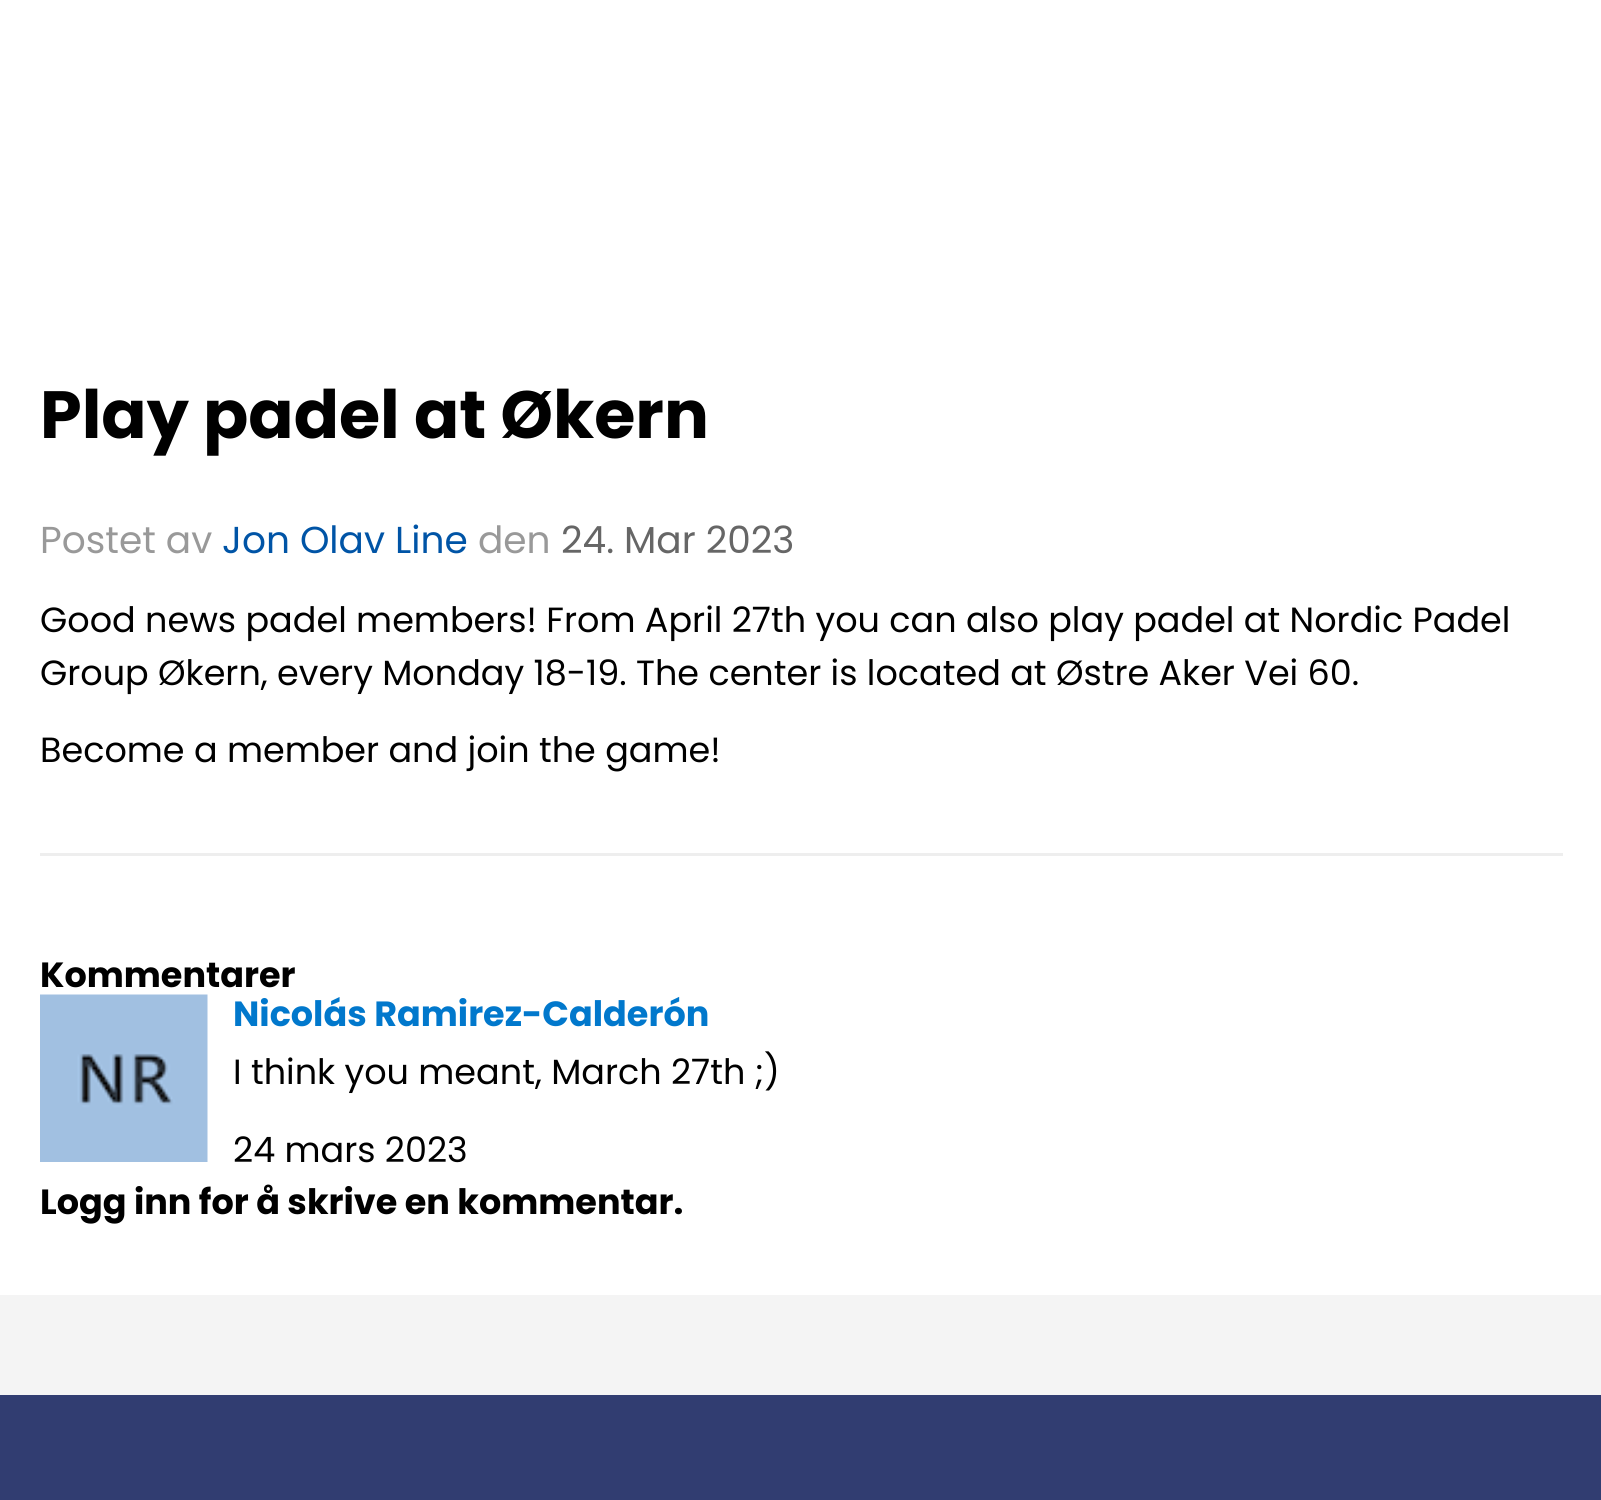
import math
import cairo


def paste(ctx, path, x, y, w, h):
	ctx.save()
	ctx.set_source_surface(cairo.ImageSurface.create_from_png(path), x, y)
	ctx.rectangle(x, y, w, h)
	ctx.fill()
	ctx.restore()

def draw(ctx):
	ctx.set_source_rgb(0.192, 0.239, 0.443)
	ctx.paint()
	ctx.set_source_rgb(1, 1, 1)
	ctx.rectangle(0, 0, 1601, 1295)
	ctx.fill()
	ctx.select_font_face('Poppins', cairo.FONT_SLANT_NORMAL, cairo.FONT_WEIGHT_BOLD)
	ctx.set_font_size(66.75)
	ctx.set_source_rgb(0, 0, 0)
	ctx.move_to(40, 438)
	ctx.show_text('Play padel at Økern')
	ctx.select_font_face('Poppins')
	ctx.set_font_size(37.5)
	ctx.set_source_rgb(0.6, 0.6, 0.6)
	ctx.move_to(40, 553)
	ctx.show_text('Postet av')
	ctx.set_source_rgb(0, 0.329, 0.651)
	ctx.move_to(222, 553)
	ctx.show_text('Jon Olav Line')
	ctx.set_source_rgb(0.6, 0.6, 0.6)
	ctx.move_to(478, 553)
	ctx.show_text('den')
	ctx.set_source_rgb(0.4, 0.4, 0.4)
	ctx.move_to(561, 553)
	ctx.show_text('24. Mar 2023')
	ctx.set_font_size(35)
	ctx.set_source_rgb(0, 0, 0)
	for x, y, s in [
		(40, 632, 'Good news padel members! From April 27th you can also play padel at Nordic Padel'),
		(40, 685, 'Group Økern, every Monday 18-19. The center is located at Østre Aker Vei 60.'),
		(40, 762, 'Become a member and join the game!'),
	]:
		ctx.move_to(x, y)
		ctx.show_text(s)
	ctx.set_source_rgb(0.933, 0.933, 0.933)
	ctx.rectangle(40, 853, 1523, 3)
	ctx.fill()
	ctx.select_font_face('Poppins', cairo.FONT_SLANT_NORMAL, cairo.FONT_WEIGHT_BOLD)
	ctx.set_source_rgb(0, 0, 0)
	ctx.move_to(40, 987)
	ctx.show_text('Kommentarer')
	paste(ctx, 'media/1.png', 40, 994, 168, 168)
	ctx.set_source_rgb(0.004, 0.471, 0.8)
	ctx.move_to(233, 1026)
	ctx.show_text('Nicolás Ramirez-Calderón')
	ctx.select_font_face('Poppins')
	ctx.set_source_rgb(0, 0, 0)
	ctx.move_to(233, 1084)
	ctx.show_text('I think you meant, March 27th ;)')
	ctx.move_to(233, 1162)
	ctx.show_text('24 mars 2023')
	ctx.select_font_face('Poppins', cairo.FONT_SLANT_NORMAL, cairo.FONT_WEIGHT_BOLD)
	ctx.move_to(40, 1214)
	ctx.show_text('Logg inn for å skrive en kommentar.')
	ctx.set_source_rgb(0.957, 0.957, 0.957)
	ctx.rectangle(0, 1295, 1601, 100)
	ctx.fill()


surface = cairo.ImageSurface(cairo.FORMAT_RGB24, 1601, 1500)
ctx = cairo.Context(surface)
options = cairo.FontOptions()
options.set_hint_metrics(cairo.HINT_METRICS_OFF)
options.set_hint_style(cairo.HINT_STYLE_NONE)
ctx.set_font_options(options)
ctx.set_miter_limit(4)
draw(ctx)
surface.write_to_png('image.png')
